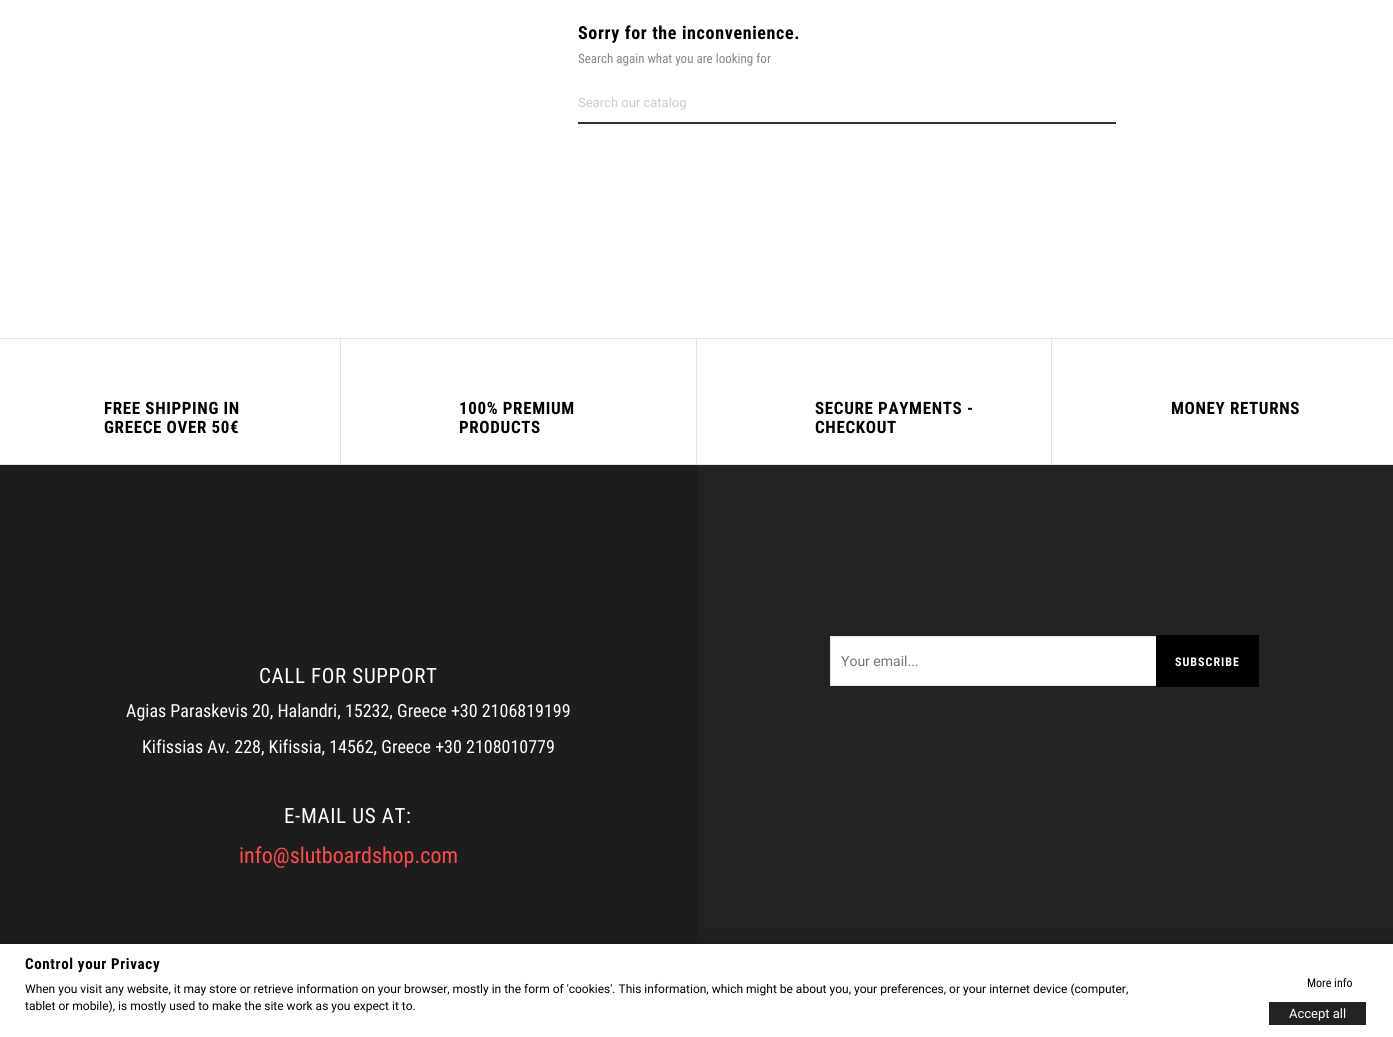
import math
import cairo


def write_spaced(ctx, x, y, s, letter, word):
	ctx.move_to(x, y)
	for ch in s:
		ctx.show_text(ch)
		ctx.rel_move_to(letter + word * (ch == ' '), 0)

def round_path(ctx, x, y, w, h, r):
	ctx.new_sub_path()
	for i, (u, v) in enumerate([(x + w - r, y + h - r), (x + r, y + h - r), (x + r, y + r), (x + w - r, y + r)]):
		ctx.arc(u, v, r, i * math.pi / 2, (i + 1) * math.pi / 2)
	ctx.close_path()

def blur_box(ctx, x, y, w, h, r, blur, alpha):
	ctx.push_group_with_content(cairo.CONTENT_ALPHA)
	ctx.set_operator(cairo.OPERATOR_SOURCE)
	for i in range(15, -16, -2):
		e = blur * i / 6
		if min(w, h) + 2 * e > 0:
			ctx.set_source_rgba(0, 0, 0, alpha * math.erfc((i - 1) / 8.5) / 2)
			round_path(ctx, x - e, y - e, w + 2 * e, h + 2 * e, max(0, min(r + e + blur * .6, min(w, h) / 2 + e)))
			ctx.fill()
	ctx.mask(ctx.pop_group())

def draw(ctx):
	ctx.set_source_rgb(1, 1, 1)
	ctx.paint()
	ctx.select_font_face('Roboto Condensed', cairo.FONT_SLANT_NORMAL, cairo.FONT_WEIGHT_BOLD)
	ctx.set_font_size(18)
	ctx.set_source_rgb(0, 0, 0)
	write_spaced(ctx, 578, 39, 'Sorry for the inconvenience.', 0.65, 0)
	ctx.select_font_face('Roboto Condensed')
	ctx.set_font_size(13)
	ctx.set_source_rgb(0.529, 0.529, 0.529)
	ctx.move_to(578, 63)
	ctx.show_text('Search again what you are looking for')
	ctx.set_source_rgb(0.2, 0.2, 0.2)
	ctx.rectangle(578, 122, 538, 2)
	ctx.fill()
	ctx.select_font_face('Roboto')
	ctx.set_source_rgb(0.8, 0.8, 0.8)
	ctx.move_to(578, 107)
	ctx.show_text('Search our catalog')
	ctx.set_source_rgb(0.898, 0.898, 0.898)
	ctx.rectangle(0, 338, 1393, 1)
	ctx.rectangle(0, 464, 1393, 1)
	ctx.rectangle(340, 339, 1, 125)
	ctx.fill()
	ctx.select_font_face('Roboto Condensed', cairo.FONT_SLANT_NORMAL, cairo.FONT_WEIGHT_BOLD)
	ctx.set_font_size(17)
	ctx.set_source_rgb(0, 0, 0)
	write_spaced(ctx, 104, 414, 'FREE SHIPPING IN', 0.65, 0)
	write_spaced(ctx, 104, 433, 'GREECE OVER 50€', 0.65, 0)
	ctx.set_source_rgb(0.898, 0.898, 0.898)
	ctx.rectangle(696, 339, 1, 125)
	ctx.fill()
	ctx.set_source_rgb(0, 0, 0)
	write_spaced(ctx, 459, 414, '100% PREMIUM', 0.65, 0)
	write_spaced(ctx, 459, 433, 'PRODUCTS', 0.65, 0)
	ctx.set_source_rgb(0.898, 0.898, 0.898)
	ctx.rectangle(1051, 339, 1, 125)
	ctx.fill()
	ctx.set_source_rgb(0, 0, 0)
	for x, y, s in [
		(815, 414, 'SECURE PAYMENTS -'),
		(815, 433, 'CHECKOUT'),
		(1171, 414, 'MONEY RETURNS'),
	]:
		write_spaced(ctx, x, y, s, 0.65, 0)
	ctx.set_source_rgb(0.133, 0.133, 0.133)
	ctx.rectangle(697, 465, 696, 479)
	ctx.fill()
	ctx.set_source_rgb(1, 1, 1)
	ctx.rectangle(831, 637, 325, 48)
	ctx.fill()
	ctx.set_source_rgb(0.898, 0.898, 0.898)
	ctx.rectangle(830, 636, 326, 1)
	ctx.rectangle(830, 685, 326, 1)
	ctx.rectangle(830, 636, 1, 50)
	ctx.fill()
	ctx.select_font_face('Roboto')
	ctx.set_font_size(14)
	ctx.set_source_rgb(0.459, 0.459, 0.459)
	ctx.move_to(841, 666)
	ctx.show_text('Your email...')
	ctx.set_source_rgb(0, 0, 0)
	ctx.rectangle(1156, 635, 103, 52)
	ctx.fill()
	ctx.select_font_face('Roboto Condensed', cairo.FONT_SLANT_NORMAL, cairo.FONT_WEIGHT_BOLD)
	ctx.set_font_size(12)
	ctx.set_source_rgb(1, 1, 1)
	write_spaced(ctx, 1175, 666, 'SUBSCRIBE', 1, 0)
	ctx.set_source_rgb(0.114, 0.114, 0.114)
	ctx.rectangle(0, 465, 697, 479)
	ctx.fill()
	ctx.select_font_face('Roboto Condensed')
	ctx.set_font_size(21)
	ctx.set_source_rgb(1, 1, 1)
	write_spaced(ctx, 259, 683, 'CALL FOR SUPPORT', 0.65, 0)
	ctx.set_font_size(18)
	ctx.move_to(126, 717)
	ctx.show_text('Agias Paraskevis 20, Halandri, 15232, Greece +30 2106819199')
	ctx.move_to(142, 753)
	ctx.show_text('Kifissias Av. 228, Kifissia, 14562, Greece +30 2108010779')
	ctx.set_font_size(21)
	write_spaced(ctx, 284, 823, 'E-MAIL US AT:', 0.65, 0)
	ctx.set_font_size(22)
	ctx.set_source_rgb(1, 0.282, 0.314)
	ctx.move_to(239, 863)
	ctx.show_text('info@slutboardshop.com')
	ctx.set_source_rgb(0.071, 0.071, 0.071)
	blur_box(ctx, 0, 944, 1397, 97, 0, 7, 1)
	ctx.set_source_rgb(1, 1, 1)
	ctx.rectangle(0, 944, 1393, 93)
	ctx.fill()
	ctx.select_font_face('Roboto Condensed', cairo.FONT_SLANT_NORMAL, cairo.FONT_WEIGHT_BOLD)
	ctx.set_font_size(15)
	ctx.set_source_rgb(0, 0, 0)
	write_spaced(ctx, 25, 969, 'Control your Privacy', 0.65, 0)
	ctx.select_font_face('Roboto')
	ctx.set_font_size(12)
	ctx.move_to(25, 993)
	ctx.show_text('When you visit any website, it may store or retrieve information on your browser, mostly in the form of \'cookies\'. This information, which might be about you, your preferences, or your internet device (computer,')
	ctx.move_to(25, 1010)
	ctx.show_text('tablet or mobile), is mostly used to make the site work as you expect it to.')
	ctx.select_font_face('Roboto Condensed')
	ctx.move_to(1307, 987)
	ctx.show_text('More info')
	ctx.set_source_rgb(0.133, 0.133, 0.133)
	ctx.rectangle(1269, 1002, 97, 23)
	ctx.fill()
	ctx.select_font_face('Roboto')
	ctx.set_font_size(13)
	ctx.set_source_rgb(1, 1, 1)
	ctx.move_to(1289, 1018)
	ctx.show_text('Accept all')


surface = cairo.ImageSurface(cairo.FORMAT_RGB24, 1393, 1037)
ctx = cairo.Context(surface)
options = cairo.FontOptions()
options.set_hint_metrics(cairo.HINT_METRICS_OFF)
options.set_hint_style(cairo.HINT_STYLE_NONE)
ctx.set_font_options(options)
ctx.set_miter_limit(4)
draw(ctx)
surface.write_to_png('image.png')
